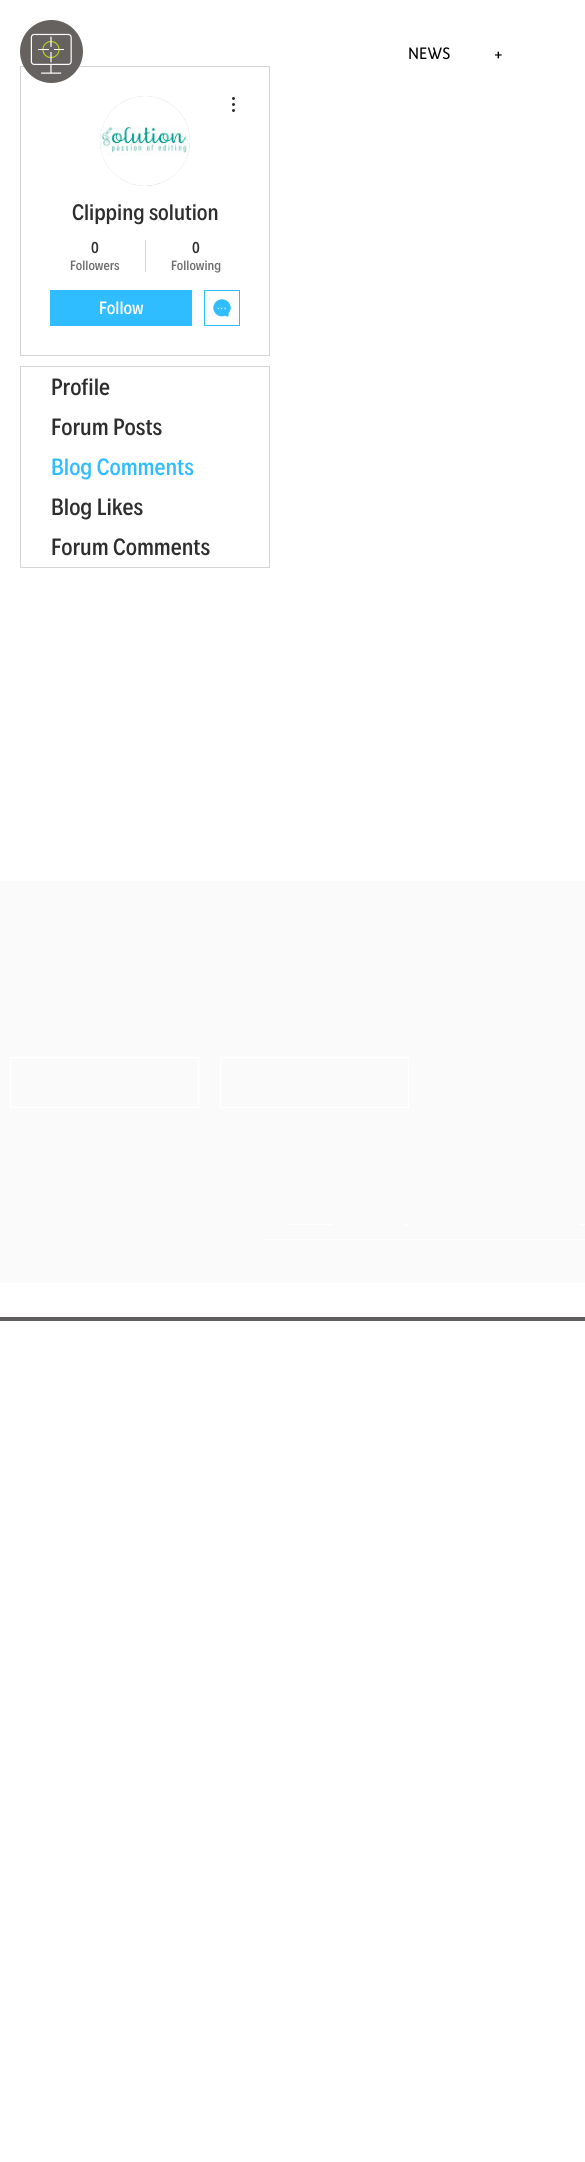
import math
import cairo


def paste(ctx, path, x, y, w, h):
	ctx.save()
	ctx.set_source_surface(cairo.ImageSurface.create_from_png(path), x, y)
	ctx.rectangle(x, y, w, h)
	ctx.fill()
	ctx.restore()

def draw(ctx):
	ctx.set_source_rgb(1, 1, 1)
	ctx.paint()
	ctx.rectangle(20.5, 66.5, 249, 289)
	ctx.set_source_rgb(0.835, 0.835, 0.835)
	ctx.set_line_width(1)
	ctx.stroke()
	paste(ctx, 'media/1.png', 20, 20, 63, 63)
	ctx.select_font_face('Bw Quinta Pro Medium')
	ctx.set_font_size(16)
	ctx.set_source_rgb(0, 0, 0)
	ctx.move_to(408, 59)
	ctx.show_text('NEWS')
	ctx.move_to(494, 59)
	ctx.show_text('+')
	ctx.set_source_rgb(0.847, 0.847, 0.847)
	ctx.new_path()
	ctx.arc(145, 141, 45, 0, 2 * math.pi)
	ctx.fill()
	paste(ctx, 'media/2.png', 100, 96, 90, 90)
	paste(ctx, 'media/3.png', 232, 97, 3, 15)
	ctx.select_font_face('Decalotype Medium')
	ctx.set_font_size(20)
	ctx.set_source_rgb(0.184, 0.18, 0.18)
	ctx.move_to(72, 220)
	ctx.show_text('Clipping solution')
	ctx.set_font_size(14)
	ctx.move_to(91, 253)
	ctx.show_text('0')
	ctx.set_font_size(12)
	ctx.set_source_rgb(0.427, 0.427, 0.427)
	ctx.move_to(70, 270)
	ctx.show_text('Followers')
	ctx.set_source_rgb(0.835, 0.835, 0.835)
	ctx.rectangle(145, 240, 1, 32)
	ctx.fill()
	ctx.set_font_size(14)
	ctx.set_source_rgb(0.184, 0.18, 0.18)
	ctx.move_to(192, 253)
	ctx.show_text('0')
	ctx.set_font_size(12)
	ctx.set_source_rgb(0.427, 0.427, 0.427)
	ctx.move_to(171, 270)
	ctx.show_text('Following')
	ctx.set_source_rgb(0.188, 0.741, 1)
	ctx.rectangle(50, 290, 142, 36)
	ctx.fill()
	ctx.set_font_size(16)
	ctx.set_source_rgb(1, 1, 1)
	ctx.move_to(99, 314)
	ctx.show_text('Follow')
	ctx.rectangle(204.5, 290.5, 35, 35)
	ctx.set_source_rgb(0.188, 0.741, 1)
	ctx.stroke()
	paste(ctx, 'media/4.png', 213, 299, 18, 18)
	ctx.rectangle(20.5, 366.5, 249, 201)
	ctx.set_source_rgb(0.835, 0.835, 0.835)
	ctx.stroke()
	ctx.set_font_size(21)
	ctx.set_source_rgb(0.184, 0.18, 0.18)
	ctx.move_to(51, 395)
	ctx.show_text('Profile')
	ctx.move_to(51, 435)
	ctx.show_text('Forum Posts')
	ctx.set_source_rgb(0.188, 0.741, 1)
	ctx.move_to(51, 475)
	ctx.show_text('Blog Comments')
	ctx.set_source_rgb(0.184, 0.18, 0.18)
	ctx.move_to(51, 515)
	ctx.show_text('Blog Likes')
	ctx.move_to(51, 555)
	ctx.show_text('Forum Comments')
	ctx.set_source_rgb(0.98, 0.98, 0.98)
	ctx.rectangle(0, 881, 585, 402)
	ctx.fill()
	ctx.set_source_rgb(1, 1, 1)
	ctx.rectangle(288, 1224, 44, 1)
	ctx.rectangle(405, 1224, 4, 1)
	ctx.rectangle(580, 1224, 5, 1)
	ctx.rectangle(262, 1239, 323, 1)
	ctx.fill()
	ctx.rectangle(10.5, 1057.5, 188, 50)
	ctx.stroke()
	ctx.rectangle(220.5, 1057.5, 188, 50)
	ctx.stroke()
	ctx.set_source_rgb(0.376, 0.369, 0.369)
	ctx.rectangle(0, 1317, 585, 4)
	ctx.fill()


surface = cairo.ImageSurface(cairo.FORMAT_RGB24, 585, 2162)
ctx = cairo.Context(surface)
options = cairo.FontOptions()
options.set_hint_metrics(cairo.HINT_METRICS_OFF)
options.set_hint_style(cairo.HINT_STYLE_NONE)
ctx.set_font_options(options)
ctx.set_miter_limit(4)
draw(ctx)
surface.write_to_png('image.png')
